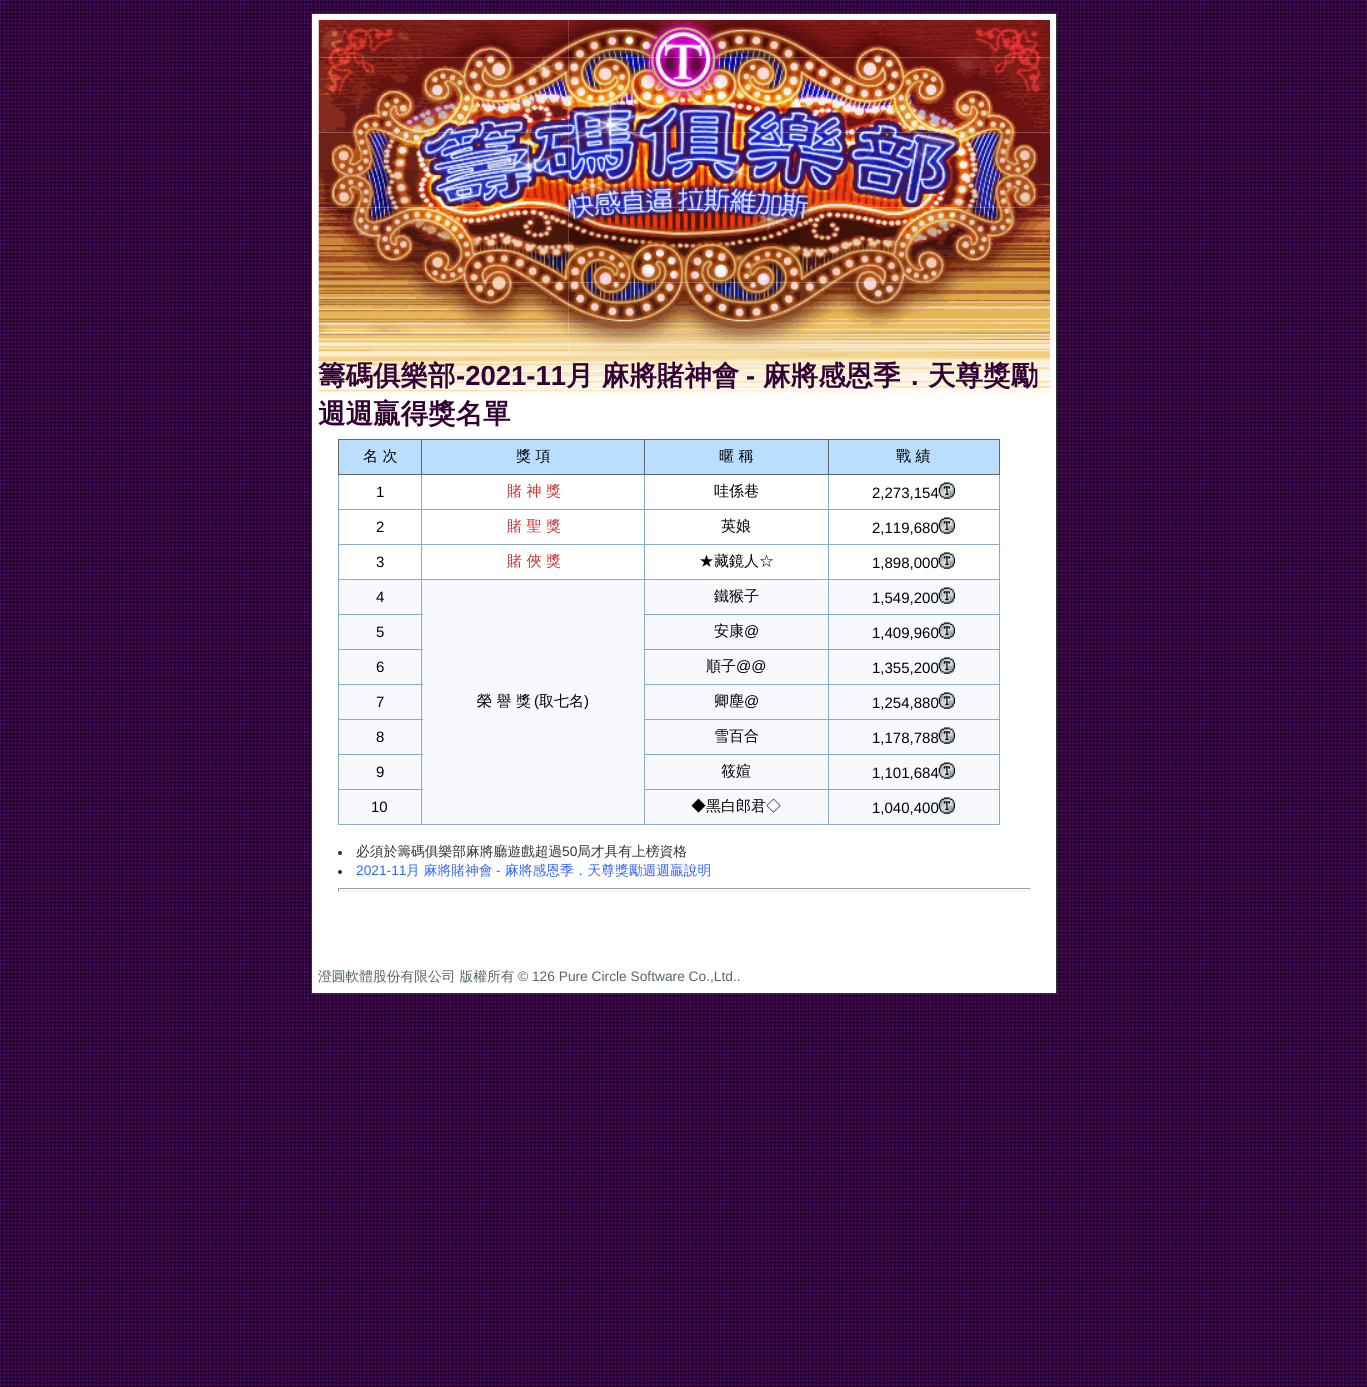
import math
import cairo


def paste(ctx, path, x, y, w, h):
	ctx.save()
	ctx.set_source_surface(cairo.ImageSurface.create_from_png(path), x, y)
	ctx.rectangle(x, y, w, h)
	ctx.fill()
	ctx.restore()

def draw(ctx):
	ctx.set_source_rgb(0.2, 0, 0.2)
	ctx.paint()
	paste(ctx, 'media/1.png', 0, 0, 1367, 1386)
	ctx.set_source_rgb(1, 1, 1)
	ctx.rectangle(312, 14, 744, 979)
	ctx.fill()
	ctx.set_source_rgb(0.2, 0.2, 0.2)
	ctx.rectangle(311, 13, 747, 1)
	ctx.rectangle(1056, 13, 1, 981)
	ctx.rectangle(311, 993, 747, 1)
	ctx.rectangle(311, 13, 1, 981)
	ctx.fill()
	paste(ctx, 'media/2.png', 318, 20, 251, 38)
	paste(ctx, 'media/3.png', 568, 20, 232, 38)
	paste(ctx, 'media/4.png', 800, 20, 250, 38)
	paste(ctx, 'media/5.png', 318, 57, 251, 38)
	paste(ctx, 'media/6.png', 568, 57, 232, 38)
	paste(ctx, 'media/7.png', 800, 57, 250, 38)
	paste(ctx, 'media/8.png', 318, 95, 251, 38)
	paste(ctx, 'media/9.png', 568, 95, 232, 38)
	paste(ctx, 'media/10.png', 800, 95, 250, 38)
	paste(ctx, 'media/11.png', 318, 132, 251, 38)
	paste(ctx, 'media/12.png', 568, 132, 232, 38)
	paste(ctx, 'media/13.png', 800, 132, 250, 38)
	paste(ctx, 'media/14.png', 318, 170, 251, 38)
	paste(ctx, 'media/15.png', 568, 170, 232, 38)
	paste(ctx, 'media/16.png', 800, 170, 250, 38)
	paste(ctx, 'media/17.png', 318, 207, 251, 38)
	paste(ctx, 'media/18.png', 568, 207, 232, 38)
	paste(ctx, 'media/19.png', 800, 207, 250, 38)
	paste(ctx, 'media/20.png', 318, 245, 251, 38)
	paste(ctx, 'media/21.png', 568, 245, 232, 38)
	paste(ctx, 'media/22.png', 800, 245, 250, 38)
	paste(ctx, 'media/23.png', 318, 282, 251, 38)
	paste(ctx, 'media/24.png', 568, 282, 232, 38)
	paste(ctx, 'media/25.png', 800, 282, 250, 38)
	paste(ctx, 'media/26.png', 318, 320, 251, 38)
	paste(ctx, 'media/27.png', 568, 320, 232, 38)
	paste(ctx, 'media/28.png', 800, 320, 250, 38)
	paste(ctx, 'media/29.png', 318, 357, 732, 38)
	ctx.select_font_face('WenQuanYi Zen Hei', cairo.FONT_SLANT_NORMAL, cairo.FONT_WEIGHT_BOLD)
	ctx.set_font_size(27.5)
	ctx.set_source_rgb(0.2, 0, 0.2)
	ctx.move_to(318, 385)
	ctx.show_text('籌碼俱樂部')
	ctx.select_font_face('Liberation Sans', cairo.FONT_SLANT_NORMAL, cairo.FONT_WEIGHT_BOLD)
	ctx.move_to(456, 385)
	ctx.show_text('-2021-11')
	ctx.select_font_face('WenQuanYi Zen Hei', cairo.FONT_SLANT_NORMAL, cairo.FONT_WEIGHT_BOLD)
	ctx.move_to(566, 385)
	ctx.show_text('月 麻將賭神會')
	ctx.select_font_face('Liberation Sans', cairo.FONT_SLANT_NORMAL, cairo.FONT_WEIGHT_BOLD)
	ctx.move_to(746, 385)
	ctx.show_text('-')
	ctx.select_font_face('WenQuanYi Zen Hei', cairo.FONT_SLANT_NORMAL, cairo.FONT_WEIGHT_BOLD)
	ctx.move_to(763, 385)
	ctx.show_text('麻將感恩季．天尊獎勵')
	ctx.move_to(318, 423)
	ctx.show_text('週週贏得獎名單')
	ctx.set_source_rgb(0.965, 0.976, 0.992)
	ctx.rectangle(339, 580, 660, 244)
	ctx.fill()
	ctx.set_source_rgb(0.4, 0.4, 0.4)
	ctx.rectangle(338, 439, 662, 1)
	ctx.rectangle(338, 439, 1, 35)
	ctx.fill()
	ctx.set_source_rgb(0.733, 0.867, 1)
	ctx.rectangle(339, 440, 305, 34)
	ctx.fill()
	ctx.set_source_rgb(0.533, 0.667, 0.8)
	ctx.rectangle(828, 509, 172, 1)
	ctx.rectangle(828, 544, 172, 1)
	ctx.rectangle(828, 579, 172, 1)
	ctx.rectangle(828, 614, 172, 1)
	ctx.rectangle(828, 649, 172, 1)
	ctx.rectangle(828, 684, 172, 1)
	ctx.rectangle(828, 719, 172, 1)
	ctx.rectangle(828, 754, 172, 1)
	ctx.rectangle(828, 789, 172, 1)
	ctx.rectangle(999, 789, 1, 36)
	ctx.rectangle(999, 754, 1, 36)
	ctx.rectangle(999, 719, 1, 36)
	ctx.rectangle(999, 684, 1, 36)
	ctx.rectangle(999, 649, 1, 36)
	ctx.rectangle(999, 614, 1, 36)
	ctx.rectangle(999, 579, 1, 36)
	ctx.rectangle(999, 544, 1, 36)
	ctx.rectangle(999, 474, 1, 71)
	ctx.fill()
	ctx.set_source_rgb(0.4, 0.4, 0.4)
	ctx.rectangle(999, 439, 1, 36)
	ctx.fill()
	ctx.set_source_rgb(0.533, 0.667, 0.8)
	ctx.rectangle(828, 824, 172, 1)
	ctx.rectangle(828, 789, 1, 36)
	ctx.rectangle(644, 789, 185, 1)
	ctx.rectangle(828, 754, 1, 36)
	ctx.rectangle(644, 754, 185, 1)
	ctx.rectangle(828, 719, 1, 36)
	ctx.rectangle(644, 719, 185, 1)
	ctx.rectangle(828, 684, 1, 36)
	ctx.rectangle(644, 684, 185, 1)
	ctx.rectangle(828, 649, 1, 36)
	ctx.rectangle(644, 649, 185, 1)
	ctx.rectangle(828, 614, 1, 36)
	ctx.rectangle(644, 614, 185, 1)
	ctx.rectangle(828, 579, 1, 36)
	ctx.rectangle(644, 579, 185, 1)
	ctx.rectangle(828, 544, 1, 36)
	ctx.rectangle(644, 544, 185, 1)
	ctx.rectangle(828, 509, 1, 36)
	ctx.rectangle(644, 509, 185, 1)
	ctx.rectangle(828, 474, 1, 36)
	ctx.fill()
	ctx.set_source_rgb(0.4, 0.4, 0.4)
	ctx.rectangle(828, 474, 172, 1)
	ctx.rectangle(828, 439, 1, 36)
	ctx.fill()
	ctx.set_source_rgb(0.533, 0.667, 0.8)
	ctx.rectangle(644, 824, 185, 1)
	ctx.rectangle(644, 789, 1, 36)
	ctx.rectangle(644, 754, 1, 36)
	ctx.rectangle(644, 719, 1, 36)
	ctx.rectangle(644, 684, 1, 36)
	ctx.rectangle(644, 649, 1, 36)
	ctx.rectangle(644, 614, 1, 36)
	ctx.rectangle(644, 579, 1, 36)
	ctx.rectangle(421, 579, 224, 1)
	ctx.rectangle(644, 544, 1, 36)
	ctx.rectangle(421, 544, 224, 1)
	ctx.rectangle(644, 509, 1, 36)
	ctx.rectangle(421, 509, 224, 1)
	ctx.rectangle(644, 474, 1, 36)
	ctx.fill()
	ctx.set_source_rgb(0.4, 0.4, 0.4)
	ctx.rectangle(644, 474, 185, 1)
	ctx.rectangle(644, 439, 1, 36)
	ctx.fill()
	ctx.set_source_rgb(0.533, 0.667, 0.8)
	ctx.rectangle(338, 614, 85, 1)
	ctx.rectangle(338, 649, 85, 1)
	ctx.rectangle(338, 684, 85, 1)
	ctx.rectangle(338, 719, 85, 1)
	ctx.rectangle(338, 754, 85, 1)
	ctx.rectangle(338, 789, 85, 1)
	ctx.rectangle(338, 824, 307, 1)
	ctx.rectangle(421, 579, 1, 246)
	ctx.rectangle(338, 579, 85, 1)
	ctx.rectangle(421, 544, 1, 36)
	ctx.rectangle(338, 544, 85, 1)
	ctx.rectangle(421, 509, 1, 36)
	ctx.rectangle(338, 509, 85, 1)
	ctx.rectangle(421, 474, 1, 36)
	ctx.fill()
	ctx.set_source_rgb(0.4, 0.4, 0.4)
	ctx.rectangle(421, 474, 224, 1)
	ctx.rectangle(421, 439, 1, 36)
	ctx.fill()
	ctx.set_source_rgb(0.533, 0.667, 0.8)
	ctx.rectangle(338, 789, 1, 36)
	ctx.rectangle(338, 754, 1, 36)
	ctx.rectangle(338, 719, 1, 36)
	ctx.rectangle(338, 684, 1, 36)
	ctx.rectangle(338, 649, 1, 36)
	ctx.rectangle(338, 614, 1, 36)
	ctx.rectangle(338, 579, 1, 36)
	ctx.rectangle(338, 544, 1, 36)
	ctx.rectangle(338, 474, 1, 71)
	ctx.fill()
	ctx.set_source_rgb(0.4, 0.4, 0.4)
	ctx.rectangle(338, 474, 85, 1)
	ctx.fill()
	ctx.select_font_face('WenQuanYi Zen Hei Medium')
	ctx.set_font_size(15)
	ctx.set_source_rgb(0, 0, 0)
	ctx.move_to(363, 461)
	ctx.show_text('名 次')
	ctx.move_to(516, 461)
	ctx.show_text('獎 項')
	ctx.set_source_rgb(0.733, 0.867, 1)
	ctx.rectangle(645, 440, 183, 34)
	ctx.fill()
	ctx.set_source_rgb(0, 0, 0)
	ctx.move_to(719, 461)
	ctx.show_text('暱 稱')
	ctx.set_source_rgb(0.733, 0.867, 1)
	ctx.rectangle(829, 440, 170, 34)
	ctx.fill()
	ctx.set_source_rgb(0, 0, 0)
	ctx.move_to(896, 461)
	ctx.show_text('戰 績')
	ctx.select_font_face('Liberation Sans')
	ctx.move_to(376, 497)
	ctx.show_text('1')
	ctx.select_font_face('WenQuanYi Zen Hei Medium')
	ctx.set_source_rgb(0.8, 0.2, 0.2)
	ctx.move_to(507, 496)
	ctx.show_text('賭 神 獎')
	ctx.set_source_rgb(0, 0, 0)
	ctx.move_to(714, 496)
	ctx.show_text('哇係巷')
	ctx.select_font_face('Liberation Sans')
	ctx.move_to(872, 498)
	ctx.show_text('2,273,154')
	paste(ctx, 'media/30.png', 938, 482, 17, 17)
	ctx.move_to(376, 532)
	ctx.show_text('2')
	ctx.select_font_face('WenQuanYi Zen Hei Medium')
	ctx.set_source_rgb(0.8, 0.2, 0.2)
	ctx.move_to(507, 531)
	ctx.show_text('賭 聖 獎')
	ctx.set_source_rgb(0, 0, 0)
	ctx.move_to(721, 531)
	ctx.show_text('英娘')
	ctx.select_font_face('Liberation Sans')
	ctx.move_to(872, 533)
	ctx.show_text('2,119,680')
	paste(ctx, 'media/31.png', 938, 517, 17, 17)
	ctx.move_to(376, 567)
	ctx.show_text('3')
	ctx.select_font_face('WenQuanYi Zen Hei Medium')
	ctx.set_source_rgb(0.8, 0.2, 0.2)
	ctx.move_to(507, 566)
	ctx.show_text('賭 俠 獎')
	ctx.set_source_rgb(0, 0, 0)
	ctx.move_to(699, 566)
	ctx.show_text('★藏鏡人☆')
	ctx.select_font_face('Liberation Sans')
	ctx.move_to(872, 568)
	ctx.show_text('1,898,000')
	paste(ctx, 'media/31.png', 938, 552, 17, 17)
	ctx.move_to(376, 602)
	ctx.show_text('4')
	ctx.select_font_face('WenQuanYi Zen Hei Medium')
	ctx.move_to(714, 601)
	ctx.show_text('鐵猴子')
	ctx.select_font_face('Liberation Sans')
	ctx.move_to(872, 603)
	ctx.show_text('1,549,200')
	paste(ctx, 'media/32.png', 938, 587, 17, 17)
	ctx.select_font_face('WenQuanYi Zen Hei Medium')
	ctx.move_to(477, 706)
	ctx.show_text('榮 譽 獎')
	ctx.select_font_face('Liberation Sans')
	ctx.move_to(534, 706)
	ctx.show_text('(')
	ctx.select_font_face('WenQuanYi Zen Hei Medium')
	ctx.move_to(539, 706)
	ctx.show_text('取七名')
	ctx.select_font_face('Liberation Sans')
	ctx.move_to(584, 706)
	ctx.show_text(')')
	ctx.move_to(376, 637)
	ctx.show_text('5')
	ctx.select_font_face('WenQuanYi Zen Hei Medium')
	ctx.move_to(714, 636)
	ctx.show_text('安康')
	ctx.select_font_face('Liberation Sans')
	ctx.move_to(744, 636)
	ctx.show_text('@')
	ctx.move_to(872, 638)
	ctx.show_text('1,409,960')
	paste(ctx, 'media/33.png', 938, 622, 17, 17)
	ctx.move_to(376, 672)
	ctx.show_text('6')
	ctx.select_font_face('WenQuanYi Zen Hei Medium')
	ctx.move_to(706, 671)
	ctx.show_text('順子')
	ctx.select_font_face('Liberation Sans')
	ctx.move_to(736, 671)
	ctx.show_text('@@')
	ctx.move_to(872, 673)
	ctx.show_text('1,355,200')
	paste(ctx, 'media/33.png', 938, 657, 17, 17)
	ctx.move_to(376, 707)
	ctx.show_text('7')
	ctx.select_font_face('WenQuanYi Zen Hei Medium')
	ctx.move_to(714, 706)
	ctx.show_text('卿塵')
	ctx.select_font_face('Liberation Sans')
	ctx.move_to(744, 706)
	ctx.show_text('@')
	ctx.move_to(872, 708)
	ctx.show_text('1,254,880')
	paste(ctx, 'media/33.png', 938, 692, 17, 17)
	ctx.move_to(376, 742)
	ctx.show_text('8')
	ctx.select_font_face('WenQuanYi Zen Hei Medium')
	ctx.move_to(714, 741)
	ctx.show_text('雪百合')
	ctx.select_font_face('Liberation Sans')
	ctx.move_to(872, 743)
	ctx.show_text('1,178,788')
	paste(ctx, 'media/34.png', 938, 727, 17, 17)
	ctx.move_to(376, 777)
	ctx.show_text('9')
	ctx.select_font_face('WenQuanYi Zen Hei Medium')
	ctx.move_to(721, 776)
	ctx.show_text('筱媗')
	ctx.select_font_face('Liberation Sans')
	ctx.move_to(872, 778)
	ctx.show_text('1,101,684')
	paste(ctx, 'media/35.png', 938, 762, 17, 17)
	ctx.move_to(371, 812)
	ctx.show_text('10')
	ctx.select_font_face('WenQuanYi Zen Hei Medium')
	ctx.move_to(691, 811)
	ctx.show_text('◆黑白郎君◇')
	ctx.select_font_face('Liberation Sans')
	ctx.move_to(872, 813)
	ctx.show_text('1,040,400')
	paste(ctx, 'media/33.png', 938, 797, 17, 17)
	ctx.set_source_rgb(0.2, 0.2, 0.2)
	ctx.arc(340, 853, 2, 0, 2 * math.pi)
	ctx.fill()
	ctx.select_font_face('WenQuanYi Zen Hei Medium')
	ctx.set_font_size(13.75)
	ctx.move_to(356, 856)
	ctx.show_text('必須於籌碼俱樂部麻將廳遊戲超過')
	ctx.select_font_face('Liberation Sans')
	ctx.move_to(562, 856)
	ctx.show_text('50')
	ctx.select_font_face('WenQuanYi Zen Hei Medium')
	ctx.move_to(577, 856)
	ctx.show_text('局才具有上榜資格')
	ctx.new_path()
	ctx.arc(340, 872, 2, 0, 2 * math.pi)
	ctx.fill()
	ctx.select_font_face('Liberation Sans')
	ctx.set_source_rgb(0.2, 0.4, 1)
	ctx.move_to(356, 875)
	ctx.show_text('2021-11')
	ctx.select_font_face('WenQuanYi Zen Hei Medium')
	ctx.move_to(406, 875)
	ctx.show_text('月 麻將賭神會')
	ctx.select_font_face('Liberation Sans')
	ctx.move_to(496, 875)
	ctx.show_text('-')
	ctx.select_font_face('WenQuanYi Zen Hei Medium')
	ctx.move_to(505, 875)
	ctx.show_text('麻將感恩季．天尊獎勵週週贏說明')
	ctx.set_source_rgb(0.624, 0.624, 0.624)
	ctx.rectangle(338, 888, 693, 1)
	ctx.fill()
	ctx.set_source_rgb(0.933, 0.933, 0.933)
	ctx.rectangle(1030, 888, 1, 4)
	ctx.rectangle(338, 890, 693, 1)
	ctx.fill()
	ctx.set_source_rgb(0.624, 0.624, 0.624)
	ctx.rectangle(338, 888, 1, 4)
	ctx.fill()
	ctx.set_source_rgb(0.333, 0.4, 0.4)
	ctx.move_to(318, 981)
	ctx.show_text('澄圓軟體股份有限公司 版權所有')
	ctx.select_font_face('Liberation Sans')
	ctx.move_to(518, 981)
	ctx.show_text('© 126 Pure Circle Software Co.,Ltd..')


surface = cairo.ImageSurface(cairo.FORMAT_RGB24, 1367, 1387)
ctx = cairo.Context(surface)
options = cairo.FontOptions()
options.set_hint_metrics(cairo.HINT_METRICS_OFF)
options.set_hint_style(cairo.HINT_STYLE_NONE)
ctx.set_font_options(options)
ctx.set_miter_limit(4)
draw(ctx)
surface.write_to_png('image.png')
